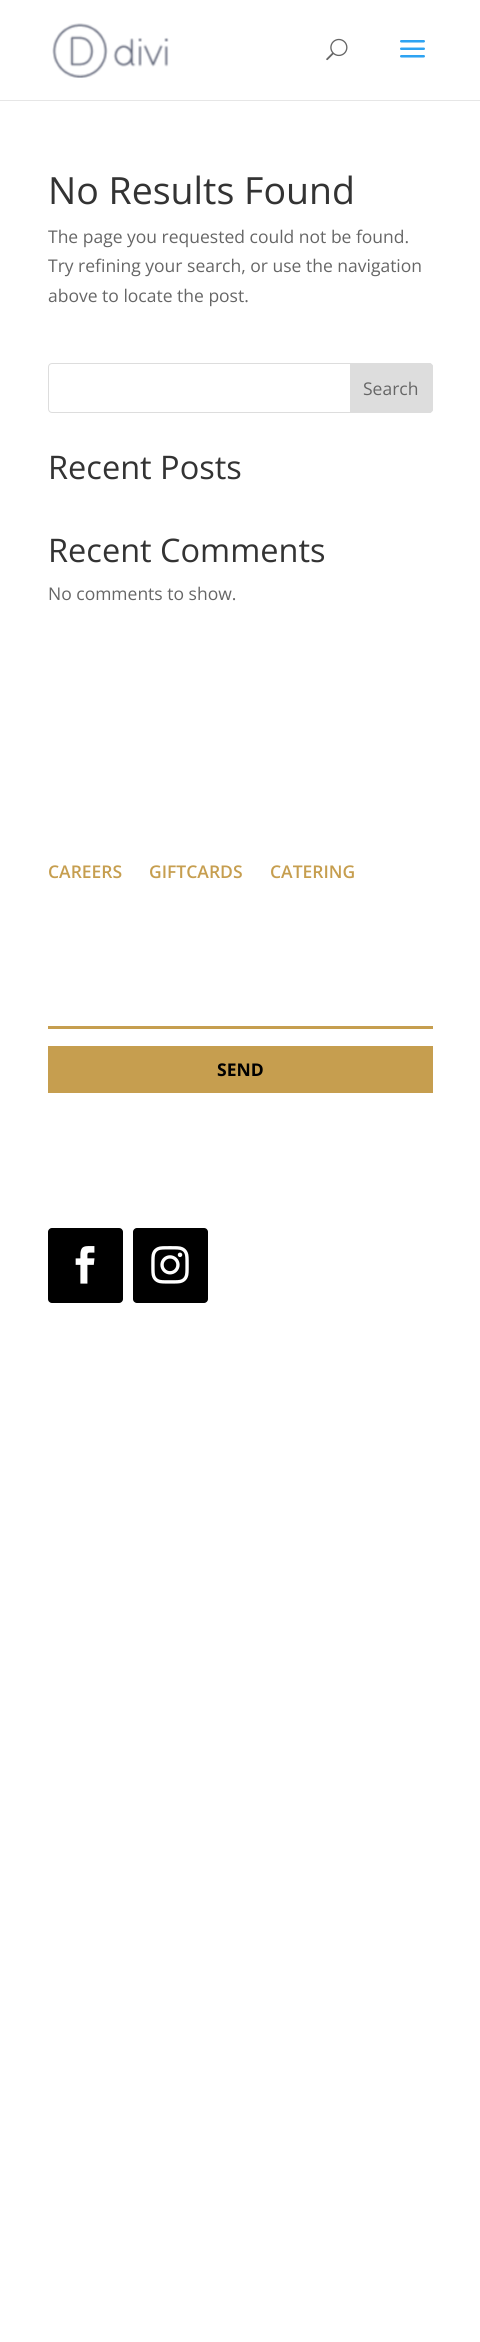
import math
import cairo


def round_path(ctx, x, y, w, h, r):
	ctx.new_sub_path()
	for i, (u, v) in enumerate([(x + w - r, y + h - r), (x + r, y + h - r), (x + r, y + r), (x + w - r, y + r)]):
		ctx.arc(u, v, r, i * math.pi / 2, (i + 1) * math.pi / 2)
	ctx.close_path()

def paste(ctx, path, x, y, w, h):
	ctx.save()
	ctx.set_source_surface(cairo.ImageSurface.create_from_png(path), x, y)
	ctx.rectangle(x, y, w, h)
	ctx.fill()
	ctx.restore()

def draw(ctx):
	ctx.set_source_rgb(1, 1, 1)
	ctx.paint()
	ctx.set_source_rgb(0.902, 0.902, 0.902)
	ctx.rectangle(0, 100, 480, 1)
	ctx.fill()
	paste(ctx, 'media/1.png', 52, 23, 117, 55)
	paste(ctx, 'media/2.png', 326, 38, 22, 23)
	paste(ctx, 'media/3.png', 400, 40, 25, 18)
	ctx.select_font_face('Open Sans')
	ctx.set_font_size(37.5)
	ctx.set_source_rgb(0.2, 0.2, 0.2)
	ctx.move_to(48, 204)
	ctx.show_text('No Results Found')
	ctx.set_font_size(17.5)
	ctx.set_source_rgb(0.4, 0.4, 0.4)
	for x, y, s in [
		(48, 243, 'The page you requested could not be found.'),
		(48, 272, 'Try refining your search, or use the navigation'),
		(48, 302, 'above to locate the post.'),
	]:
		ctx.move_to(x, y)
		ctx.show_text(s)
	round_path(ctx, 48.5, 363.5, 384, 49, 3.5)
	ctx.set_source_rgb(0.867, 0.867, 0.867)
	ctx.set_line_width(1)
	ctx.stroke()
	ctx.new_path()
	ctx.move_to(350.5, 363.5)
	ctx.line_to(429, 363.5)
	ctx.curve_to(431, 363.5, 432.5, 365, 432.5, 367)
	ctx.line_to(432.5, 409)
	ctx.curve_to(432.5, 411, 431, 412.5, 429, 412.5)
	ctx.line_to(350.5, 412.5)
	ctx.close_path()
	ctx.fill_preserve()
	ctx.stroke()
	ctx.set_source_rgb(0.4, 0.4, 0.4)
	ctx.move_to(363, 395)
	ctx.show_text('Search')
	ctx.set_font_size(32.5)
	ctx.set_source_rgb(0.2, 0.2, 0.2)
	ctx.move_to(48, 479)
	ctx.show_text('Recent Posts')
	ctx.move_to(48, 562)
	ctx.show_text('Recent Comments')
	ctx.set_font_size(17.5)
	ctx.set_source_rgb(0.4, 0.4, 0.4)
	ctx.move_to(48, 600)
	ctx.show_text('No comments to show.')
	ctx.select_font_face('Open Sans SemiBold')
	ctx.set_source_rgb(0.776, 0.62, 0.31)
	for x, y, s in [
		(48, 878, 'CAREERS'),
		(149, 878, 'GIFTCARDS'),
		(270, 878, 'CATERING'),
	]:
		ctx.move_to(x, y)
		ctx.show_text(s)
	ctx.rectangle(48, 1026, 385, 3)
	ctx.fill()
	ctx.rectangle(48, 1046, 385, 47)
	ctx.fill()
	ctx.select_font_face('Open Sans', cairo.FONT_SLANT_NORMAL, cairo.FONT_WEIGHT_BOLD)
	ctx.set_source_rgb(0, 0, 0)
	ctx.move_to(217, 1076)
	ctx.show_text('SEND')
	round_path(ctx, 48, 1228, 75, 75, 4)
	ctx.fill()
	paste(ctx, 'media/4.png', 75, 1246, 20, 38)
	round_path(ctx, 133, 1228, 75, 75, 4)
	ctx.fill()
	paste(ctx, 'media/5.png', 151, 1246, 38, 38)


surface = cairo.ImageSurface(cairo.FORMAT_RGB24, 480, 2342)
ctx = cairo.Context(surface)
options = cairo.FontOptions()
options.set_hint_metrics(cairo.HINT_METRICS_OFF)
options.set_hint_style(cairo.HINT_STYLE_NONE)
ctx.set_font_options(options)
ctx.set_miter_limit(4)
draw(ctx)
surface.write_to_png('image.png')
